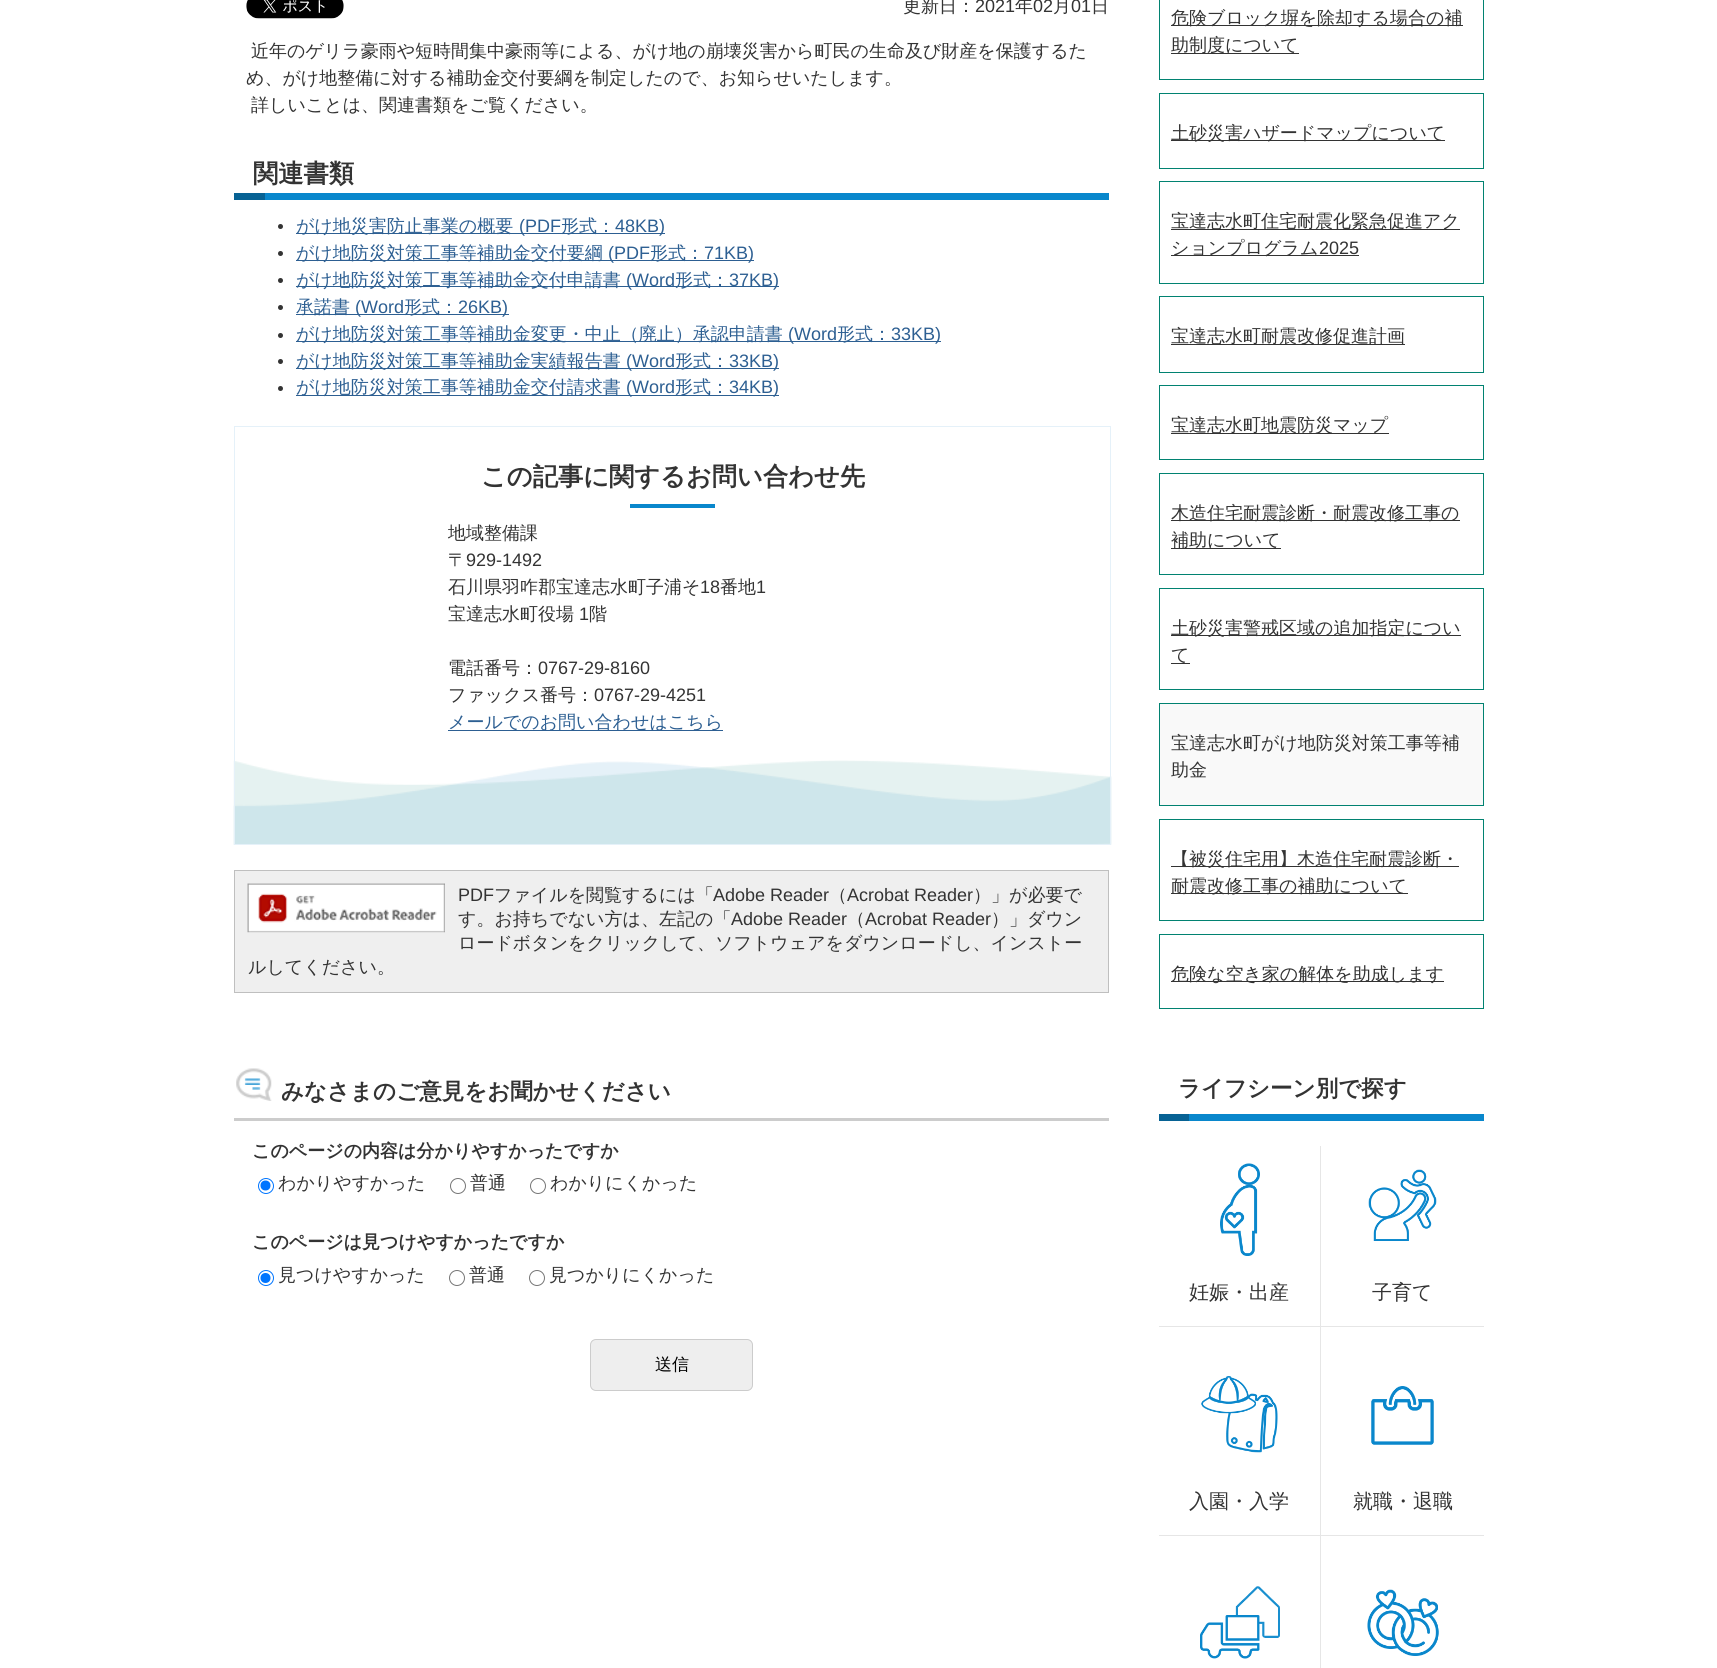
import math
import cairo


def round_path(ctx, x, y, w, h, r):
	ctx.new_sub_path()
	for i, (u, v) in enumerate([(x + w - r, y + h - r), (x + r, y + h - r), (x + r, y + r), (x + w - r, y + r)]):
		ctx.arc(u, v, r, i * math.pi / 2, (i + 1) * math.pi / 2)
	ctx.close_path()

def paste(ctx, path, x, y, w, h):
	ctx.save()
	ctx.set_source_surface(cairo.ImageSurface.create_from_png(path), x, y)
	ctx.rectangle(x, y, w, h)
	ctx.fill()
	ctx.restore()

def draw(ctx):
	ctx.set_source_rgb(1, 1, 1)
	ctx.paint()
	paste(ctx, 'media/1.png', 246, 0, 98, 19)
	ctx.select_font_face('WenQuanYi Zen Hei Medium')
	ctx.set_font_size(18)
	ctx.set_source_rgb(0.2, 0.2, 0.2)
	ctx.move_to(903, 12)
	ctx.show_text('更新日：')
	ctx.select_font_face('Liberation Sans')
	ctx.move_to(975, 12)
	ctx.show_text('2021')
	ctx.select_font_face('WenQuanYi Zen Hei Medium')
	ctx.move_to(1015, 12)
	ctx.show_text('年')
	ctx.select_font_face('Liberation Sans')
	ctx.move_to(1033, 12)
	ctx.show_text('02')
	ctx.select_font_face('WenQuanYi Zen Hei Medium')
	ctx.move_to(1053, 12)
	ctx.show_text('月')
	ctx.select_font_face('Liberation Sans')
	ctx.move_to(1071, 12)
	ctx.show_text('01')
	ctx.select_font_face('WenQuanYi Zen Hei Medium')
	for x, y, s in [
		(1091, 12, '日'),
		(251, 57, '近年のゲリラ豪雨や短時間集中豪雨等による、がけ地の崩壊災害から町民の生命及び財産を保護するた'),
		(246, 84, 'め、がけ地整備に対する補助金交付要綱を制定したので、お知らせいたします。'),
		(251, 111, '詳しいことは、関連書類をご覧ください。'),
	]:
		ctx.move_to(x, y)
		ctx.show_text(s)
	ctx.select_font_face('WenQuanYi Zen Hei', cairo.FONT_SLANT_NORMAL, cairo.FONT_WEIGHT_BOLD)
	ctx.set_font_size(25.25)
	ctx.move_to(253, 182)
	ctx.show_text('関連書類')
	ctx.set_source_rgb(0.031, 0.384, 0.58)
	ctx.rectangle(234, 193, 31, 7)
	ctx.fill()
	ctx.set_source_rgb(0.039, 0.529, 0.8)
	ctx.rectangle(265, 193, 844, 7)
	ctx.fill()
	ctx.set_source_rgb(0.2, 0.2, 0.2)
	ctx.arc(280.5, 226.5, 2.5, 0, 2 * math.pi)
	ctx.fill()
	ctx.set_source_rgb(0.176, 0.373, 0.573)
	ctx.rectangle(296, 233, 369, 1)
	ctx.fill()
	ctx.select_font_face('WenQuanYi Zen Hei Medium')
	ctx.set_font_size(18)
	ctx.move_to(296, 232)
	ctx.show_text('がけ地災害防止事業の概要')
	ctx.select_font_face('Liberation Sans')
	ctx.move_to(519, 232)
	ctx.show_text('(PDF')
	ctx.select_font_face('WenQuanYi Zen Hei Medium')
	ctx.move_to(561, 232)
	ctx.show_text('形式：')
	ctx.select_font_face('Liberation Sans')
	ctx.move_to(615, 232)
	ctx.show_text('48KB)')
	ctx.set_source_rgb(0.2, 0.2, 0.2)
	ctx.new_path()
	ctx.arc(280.5, 253.5, 2.5, 0, 2 * math.pi)
	ctx.fill()
	ctx.set_source_rgb(0.176, 0.373, 0.573)
	ctx.rectangle(296, 260, 458, 1)
	ctx.fill()
	ctx.select_font_face('WenQuanYi Zen Hei Medium')
	ctx.move_to(296, 259)
	ctx.show_text('がけ地防災対策工事等補助金交付要綱')
	ctx.select_font_face('Liberation Sans')
	ctx.move_to(608, 259)
	ctx.show_text('(PDF')
	ctx.select_font_face('WenQuanYi Zen Hei Medium')
	ctx.move_to(650, 259)
	ctx.show_text('形式：')
	ctx.select_font_face('Liberation Sans')
	ctx.move_to(704, 259)
	ctx.show_text('71KB)')
	ctx.set_source_rgb(0.2, 0.2, 0.2)
	ctx.new_path()
	ctx.arc(280.5, 280.5, 2.5, 0, 2 * math.pi)
	ctx.fill()
	ctx.set_source_rgb(0.176, 0.373, 0.573)
	ctx.rectangle(296, 286, 483, 1)
	ctx.fill()
	ctx.select_font_face('WenQuanYi Zen Hei Medium')
	ctx.move_to(296, 286)
	ctx.show_text('がけ地防災対策工事等補助金交付申請書')
	ctx.select_font_face('Liberation Sans')
	ctx.move_to(626, 286)
	ctx.show_text('(Word')
	ctx.select_font_face('WenQuanYi Zen Hei Medium')
	ctx.move_to(675, 286)
	ctx.show_text('形式：')
	ctx.select_font_face('Liberation Sans')
	ctx.move_to(729, 286)
	ctx.show_text('37KB)')
	ctx.set_source_rgb(0.2, 0.2, 0.2)
	ctx.new_path()
	ctx.arc(280.5, 307.5, 2.5, 0, 2 * math.pi)
	ctx.fill()
	ctx.set_source_rgb(0.176, 0.373, 0.573)
	ctx.rectangle(296, 314, 213, 1)
	ctx.fill()
	ctx.select_font_face('WenQuanYi Zen Hei Medium')
	ctx.move_to(296, 313)
	ctx.show_text('承諾書')
	ctx.select_font_face('Liberation Sans')
	ctx.move_to(355, 313)
	ctx.show_text('(Word')
	ctx.select_font_face('WenQuanYi Zen Hei Medium')
	ctx.move_to(404, 313)
	ctx.show_text('形式：')
	ctx.select_font_face('Liberation Sans')
	ctx.move_to(458, 313)
	ctx.show_text('26KB)')
	ctx.set_source_rgb(0.2, 0.2, 0.2)
	ctx.new_path()
	ctx.arc(280.5, 335.5, 2.5, 0, 2 * math.pi)
	ctx.fill()
	ctx.set_source_rgb(0.176, 0.373, 0.573)
	ctx.rectangle(296, 341, 645, 1)
	ctx.fill()
	ctx.select_font_face('WenQuanYi Zen Hei Medium')
	ctx.move_to(296, 340)
	ctx.show_text('がけ地防災対策工事等補助金変更・中止（廃止）承認申請書')
	ctx.select_font_face('Liberation Sans')
	ctx.move_to(788, 340)
	ctx.show_text('(Word')
	ctx.select_font_face('WenQuanYi Zen Hei Medium')
	ctx.move_to(837, 340)
	ctx.show_text('形式：')
	ctx.select_font_face('Liberation Sans')
	ctx.move_to(891, 340)
	ctx.show_text('33KB)')
	ctx.set_source_rgb(0.2, 0.2, 0.2)
	ctx.new_path()
	ctx.arc(280.5, 361.5, 2.5, 0, 2 * math.pi)
	ctx.fill()
	ctx.set_source_rgb(0.176, 0.373, 0.573)
	ctx.rectangle(296, 368, 483, 1)
	ctx.fill()
	ctx.select_font_face('WenQuanYi Zen Hei Medium')
	ctx.move_to(296, 367)
	ctx.show_text('がけ地防災対策工事等補助金実績報告書')
	ctx.select_font_face('Liberation Sans')
	ctx.move_to(626, 367)
	ctx.show_text('(Word')
	ctx.select_font_face('WenQuanYi Zen Hei Medium')
	ctx.move_to(675, 367)
	ctx.show_text('形式：')
	ctx.select_font_face('Liberation Sans')
	ctx.move_to(729, 367)
	ctx.show_text('33KB)')
	ctx.set_source_rgb(0.2, 0.2, 0.2)
	ctx.new_path()
	ctx.arc(280.5, 388.5, 2.5, 0, 2 * math.pi)
	ctx.fill()
	ctx.set_source_rgb(0.176, 0.373, 0.573)
	ctx.rectangle(296, 395, 483, 1)
	ctx.fill()
	ctx.select_font_face('WenQuanYi Zen Hei Medium')
	ctx.move_to(296, 393)
	ctx.show_text('がけ地防災対策工事等補助金交付請求書')
	ctx.select_font_face('Liberation Sans')
	ctx.move_to(626, 393)
	ctx.show_text('(Word')
	ctx.select_font_face('WenQuanYi Zen Hei Medium')
	ctx.move_to(675, 393)
	ctx.show_text('形式：')
	ctx.select_font_face('Liberation Sans')
	ctx.move_to(729, 393)
	ctx.show_text('34KB)')
	paste(ctx, 'media/2.png', 233, 760, 879, 85)
	ctx.rectangle(234.5, 426.5, 876, 418)
	ctx.set_source_rgb(0.898, 0.945, 0.973)
	ctx.set_line_width(1)
	ctx.stroke()
	ctx.select_font_face('WenQuanYi Zen Hei', cairo.FONT_SLANT_NORMAL, cairo.FONT_WEIGHT_BOLD)
	ctx.set_font_size(25.25)
	ctx.set_source_rgb(0.2, 0.2, 0.2)
	ctx.move_to(481, 485)
	ctx.show_text('この記事に関するお問い合わせ先')
	ctx.set_source_rgb(0.039, 0.529, 0.8)
	ctx.rectangle(630, 504, 85, 4)
	ctx.fill()
	ctx.select_font_face('WenQuanYi Zen Hei Medium')
	ctx.set_font_size(18)
	ctx.set_source_rgb(0.2, 0.2, 0.2)
	ctx.move_to(448, 539)
	ctx.show_text('地域整備課')
	ctx.move_to(448, 566)
	ctx.show_text('〒')
	ctx.select_font_face('Liberation Sans')
	ctx.move_to(466, 566)
	ctx.show_text('929-1492')
	ctx.select_font_face('WenQuanYi Zen Hei Medium')
	ctx.move_to(448, 593)
	ctx.show_text('石川県羽咋郡宝達志水町子浦そ')
	ctx.select_font_face('Liberation Sans')
	ctx.move_to(700, 593)
	ctx.show_text('18')
	ctx.select_font_face('WenQuanYi Zen Hei Medium')
	ctx.move_to(720, 593)
	ctx.show_text('番地')
	ctx.select_font_face('Liberation Sans')
	ctx.move_to(756, 593)
	ctx.show_text('1')
	ctx.select_font_face('WenQuanYi Zen Hei Medium')
	ctx.move_to(448, 620)
	ctx.show_text('宝達志水町役場')
	ctx.select_font_face('Liberation Sans')
	ctx.move_to(579, 620)
	ctx.show_text('1')
	ctx.select_font_face('WenQuanYi Zen Hei Medium')
	ctx.move_to(589, 620)
	ctx.show_text('階')
	ctx.move_to(448, 674)
	ctx.show_text('電話番号：')
	ctx.select_font_face('Liberation Sans')
	ctx.move_to(538, 674)
	ctx.show_text('0767-29-8160')
	ctx.select_font_face('WenQuanYi Zen Hei Medium')
	ctx.move_to(448, 701)
	ctx.show_text('ファックス番号：')
	ctx.select_font_face('Liberation Sans')
	ctx.move_to(594, 701)
	ctx.show_text('0767-29-4251')
	ctx.set_source_rgb(0.176, 0.373, 0.573)
	ctx.rectangle(448, 730, 275, 1)
	ctx.fill()
	ctx.select_font_face('WenQuanYi Zen Hei Medium')
	ctx.move_to(448, 728)
	ctx.show_text('メールでのお問い合わせはこちら')
	ctx.set_source_rgb(0.937, 0.937, 0.937)
	ctx.rectangle(234.5, 870.5, 874, 122)
	ctx.fill_preserve()
	ctx.set_source_rgb(0.749, 0.749, 0.749)
	ctx.stroke()
	paste(ctx, 'media/3.png', 247, 883, 198, 50)
	ctx.select_font_face('Liberation Sans')
	ctx.set_source_rgb(0.2, 0.2, 0.2)
	ctx.move_to(458, 901)
	ctx.show_text('PDF')
	ctx.select_font_face('WenQuanYi Zen Hei Medium')
	ctx.move_to(494, 901)
	ctx.show_text('ファイルを閲覧するには「')
	ctx.select_font_face('Liberation Sans')
	ctx.move_to(713, 901)
	ctx.show_text('Adobe Reader')
	ctx.select_font_face('WenQuanYi Zen Hei Medium')
	ctx.move_to(829, 901)
	ctx.show_text('（')
	ctx.select_font_face('Liberation Sans')
	ctx.move_to(847, 901)
	ctx.show_text('Acrobat Reader')
	ctx.select_font_face('WenQuanYi Zen Hei Medium')
	ctx.move_to(973, 901)
	ctx.show_text('）」が必要で')
	ctx.move_to(458, 925)
	ctx.show_text('す。お持ちでない方は、左記の「')
	ctx.select_font_face('Liberation Sans')
	ctx.move_to(731, 925)
	ctx.show_text('Adobe Reader')
	ctx.select_font_face('WenQuanYi Zen Hei Medium')
	ctx.move_to(847, 925)
	ctx.show_text('（')
	ctx.select_font_face('Liberation Sans')
	ctx.move_to(865, 925)
	ctx.show_text('Acrobat Reader')
	ctx.select_font_face('WenQuanYi Zen Hei Medium')
	for x, y, s in [
		(991, 925, '）」ダウン'),
		(458, 949, 'ロードボタンをクリックして、ソフトウェアをダウンロードし、インストー'),
		(248, 973, 'ルしてください。'),
	]:
		ctx.move_to(x, y)
		ctx.show_text(s)
	paste(ctx, 'media/4.png', 236, 1068, 36, 33)
	ctx.set_source_rgb(0.8, 0.8, 0.8)
	ctx.rectangle(234, 1118, 875, 3)
	ctx.fill()
	ctx.select_font_face('WenQuanYi Zen Hei', cairo.FONT_SLANT_NORMAL, cairo.FONT_WEIGHT_BOLD)
	ctx.set_font_size(22.5)
	ctx.set_source_rgb(0.2, 0.2, 0.2)
	ctx.move_to(281, 1099)
	ctx.show_text('みなさまのご意見をお聞かせください')
	ctx.set_font_size(18)
	ctx.move_to(252, 1157)
	ctx.show_text('このページの内容は分かりやすかったですか')
	ctx.new_path()
	ctx.arc(266, 1186, 7.5, 0, 2 * math.pi)
	ctx.set_source_rgb(0, 0.459, 1)
	ctx.stroke()
	ctx.arc(265.5, 1185.5, 5, 0, 2 * math.pi)
	ctx.fill()
	ctx.select_font_face('WenQuanYi Zen Hei Medium')
	ctx.set_source_rgb(0.2, 0.2, 0.2)
	ctx.move_to(278, 1189)
	ctx.show_text('わかりやすかった')
	ctx.new_path()
	ctx.arc(458, 1186, 7.5, 0, 2 * math.pi)
	ctx.set_source_rgb(0.463, 0.463, 0.463)
	ctx.stroke()
	ctx.set_source_rgb(0.2, 0.2, 0.2)
	ctx.move_to(470, 1189)
	ctx.show_text('普通')
	ctx.new_path()
	ctx.arc(538, 1186, 7.5, 0, 2 * math.pi)
	ctx.set_source_rgb(0.463, 0.463, 0.463)
	ctx.stroke()
	ctx.set_source_rgb(0.2, 0.2, 0.2)
	ctx.move_to(550, 1189)
	ctx.show_text('わかりにくかった')
	ctx.select_font_face('WenQuanYi Zen Hei', cairo.FONT_SLANT_NORMAL, cairo.FONT_WEIGHT_BOLD)
	ctx.move_to(252, 1248)
	ctx.show_text('このページは見つけやすかったですか')
	ctx.new_path()
	ctx.arc(266, 1278, 7.5, 0, 2 * math.pi)
	ctx.set_source_rgb(0, 0.459, 1)
	ctx.stroke()
	ctx.arc(265.5, 1278, 5, 0, 2 * math.pi)
	ctx.fill()
	ctx.select_font_face('WenQuanYi Zen Hei Medium')
	ctx.set_source_rgb(0.2, 0.2, 0.2)
	ctx.move_to(278, 1281)
	ctx.show_text('見つけやすかった')
	ctx.new_path()
	ctx.arc(457, 1278, 7.5, 0, 2 * math.pi)
	ctx.set_source_rgb(0.463, 0.463, 0.463)
	ctx.stroke()
	ctx.set_source_rgb(0.2, 0.2, 0.2)
	ctx.move_to(469, 1281)
	ctx.show_text('普通')
	ctx.new_path()
	ctx.arc(537, 1278, 7.5, 0, 2 * math.pi)
	ctx.set_source_rgb(0.463, 0.463, 0.463)
	ctx.stroke()
	ctx.set_source_rgb(0.2, 0.2, 0.2)
	ctx.move_to(549, 1281)
	ctx.show_text('見つかりにくかった')
	ctx.set_source_rgb(0.933, 0.933, 0.933)
	round_path(ctx, 590.5, 1339.5, 162, 51, 5.5)
	ctx.fill_preserve()
	ctx.set_source_rgb(0.8, 0.8, 0.8)
	ctx.stroke()
	ctx.set_font_size(17)
	ctx.set_source_rgb(0, 0, 0)
	ctx.move_to(655, 1370)
	ctx.show_text('送信')
	ctx.rectangle(1159.5, -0.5, 324, 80)
	ctx.set_source_rgb(0.004, 0.51, 0.443)
	ctx.stroke()
	ctx.set_source_rgb(0.2, 0.2, 0.2)
	ctx.rectangle(1171, 25, 292, 1)
	ctx.fill()
	ctx.set_font_size(18)
	ctx.move_to(1171, 24)
	ctx.show_text('危険ブロック塀を除却する場合の補')
	ctx.rectangle(1171, 53, 128, 1)
	ctx.fill()
	ctx.move_to(1171, 51)
	ctx.show_text('助制度について')
	ctx.rectangle(1159.5, 93.5, 324, 75)
	ctx.set_source_rgb(0.004, 0.51, 0.443)
	ctx.stroke()
	ctx.set_source_rgb(0.2, 0.2, 0.2)
	ctx.rectangle(1171, 140, 274, 1)
	ctx.fill()
	ctx.move_to(1171, 139)
	ctx.show_text('土砂災害ハザードマップについて')
	ctx.rectangle(1159.5, 181.5, 324, 102)
	ctx.set_source_rgb(0.004, 0.51, 0.443)
	ctx.stroke()
	ctx.set_source_rgb(0.2, 0.2, 0.2)
	ctx.rectangle(1171, 229, 289, 1)
	ctx.fill()
	ctx.move_to(1171, 227)
	ctx.show_text('宝達志水町住宅耐震化緊急促進アク')
	ctx.rectangle(1171, 255, 188, 1)
	ctx.fill()
	ctx.move_to(1171, 254)
	ctx.show_text('ションプログラム')
	ctx.select_font_face('Liberation Sans')
	ctx.move_to(1319, 254)
	ctx.show_text('2025')
	ctx.rectangle(1159.5, 296.5, 324, 76)
	ctx.set_source_rgb(0.004, 0.51, 0.443)
	ctx.stroke()
	ctx.set_source_rgb(0.2, 0.2, 0.2)
	ctx.rectangle(1171, 344, 234, 1)
	ctx.fill()
	ctx.select_font_face('WenQuanYi Zen Hei Medium')
	ctx.move_to(1171, 342)
	ctx.show_text('宝達志水町耐震改修促進計画')
	ctx.rectangle(1159.5, 385.5, 324, 74)
	ctx.set_source_rgb(0.004, 0.51, 0.443)
	ctx.stroke()
	ctx.set_source_rgb(0.2, 0.2, 0.2)
	ctx.rectangle(1171, 433, 218, 1)
	ctx.fill()
	ctx.move_to(1171, 431)
	ctx.show_text('宝達志水町地震防災マップ')
	ctx.rectangle(1159.5, 473.5, 324, 101)
	ctx.set_source_rgb(0.004, 0.51, 0.443)
	ctx.stroke()
	ctx.set_source_rgb(0.2, 0.2, 0.2)
	ctx.rectangle(1171, 520, 289, 1)
	ctx.fill()
	ctx.move_to(1171, 519)
	ctx.show_text('木造住宅耐震診断・耐震改修工事の')
	ctx.rectangle(1171, 548, 110, 1)
	ctx.fill()
	ctx.move_to(1171, 546)
	ctx.show_text('補助について')
	ctx.rectangle(1159.5, 588.5, 324, 101)
	ctx.set_source_rgb(0.004, 0.51, 0.443)
	ctx.stroke()
	ctx.set_source_rgb(0.2, 0.2, 0.2)
	ctx.rectangle(1171, 635, 290, 1)
	ctx.fill()
	ctx.move_to(1171, 634)
	ctx.show_text('土砂災害警戒区域の追加指定につい')
	ctx.rectangle(1171, 663, 19, 1)
	ctx.fill()
	ctx.move_to(1171, 661)
	ctx.show_text('て')
	ctx.rectangle(1159.5, 703.5, 324, 102)
	ctx.set_source_rgb(0.004, 0.51, 0.443)
	ctx.stroke()
	ctx.set_source_rgb(0.976, 0.976, 0.976)
	ctx.rectangle(1160, 704, 323, 101)
	ctx.fill()
	ctx.set_source_rgb(0.2, 0.2, 0.2)
	ctx.move_to(1171, 749)
	ctx.show_text('宝達志水町がけ地防災対策工事等補')
	ctx.move_to(1171, 776)
	ctx.show_text('助金')
	ctx.rectangle(1159.5, 819.5, 324, 101)
	ctx.set_source_rgb(0.004, 0.51, 0.443)
	ctx.stroke()
	ctx.set_source_rgb(0.2, 0.2, 0.2)
	ctx.rectangle(1171, 866, 288, 1)
	ctx.fill()
	ctx.move_to(1171, 865)
	ctx.show_text('【被災住宅用】木造住宅耐震診断・')
	ctx.rectangle(1171, 893, 237, 1)
	ctx.fill()
	ctx.move_to(1171, 892)
	ctx.show_text('耐震改修工事の補助について')
	ctx.rectangle(1159.5, 934.5, 324, 74)
	ctx.set_source_rgb(0.004, 0.51, 0.443)
	ctx.stroke()
	ctx.set_source_rgb(0.2, 0.2, 0.2)
	ctx.rectangle(1171, 981, 273, 1)
	ctx.fill()
	ctx.move_to(1171, 980)
	ctx.show_text('危険な空き家の解体を助成します')
	ctx.select_font_face('WenQuanYi Zen Hei', cairo.FONT_SLANT_NORMAL, cairo.FONT_WEIGHT_BOLD)
	ctx.set_font_size(22.5)
	ctx.move_to(1178, 1096)
	ctx.show_text('ライフシーン別で探す')
	ctx.set_source_rgb(0.031, 0.384, 0.58)
	ctx.rectangle(1159, 1114, 30, 7)
	ctx.fill()
	ctx.set_source_rgb(0.039, 0.529, 0.8)
	ctx.rectangle(1189, 1114, 295, 7)
	ctx.fill()
	ctx.set_source_rgb(0.902, 0.902, 0.902)
	ctx.rectangle(1320, 1146, 1, 522)
	ctx.rectangle(1159, 1326, 325, 1)
	ctx.fill()
	paste(ctx, 'media/5.png', 1220, 1163, 40, 93)
	ctx.select_font_face('WenQuanYi Zen Hei Medium')
	ctx.set_font_size(20)
	ctx.set_source_rgb(0.2, 0.2, 0.2)
	ctx.move_to(1189, 1299)
	ctx.show_text('妊娠・出産')
	paste(ctx, 'media/6.png', 1368, 1169, 69, 72)
	ctx.move_to(1372, 1299)
	ctx.show_text('子育て')
	ctx.set_source_rgb(0.902, 0.902, 0.902)
	ctx.rectangle(1159, 1535, 325, 1)
	ctx.fill()
	paste(ctx, 'media/7.png', 1201, 1376, 77, 77)
	ctx.set_source_rgb(0.2, 0.2, 0.2)
	ctx.move_to(1189, 1508)
	ctx.show_text('入園・入学')
	paste(ctx, 'media/8.png', 1371, 1386, 63, 59)
	ctx.move_to(1353, 1508)
	ctx.show_text('就職・退職')
	paste(ctx, 'media/9.png', 1200, 1586, 80, 73)
	paste(ctx, 'media/10.png', 1367, 1589, 72, 67)


surface = cairo.ImageSurface(cairo.FORMAT_RGB24, 1717, 1668)
ctx = cairo.Context(surface)
options = cairo.FontOptions()
options.set_hint_metrics(cairo.HINT_METRICS_OFF)
options.set_hint_style(cairo.HINT_STYLE_NONE)
ctx.set_font_options(options)
ctx.set_miter_limit(4)
draw(ctx)
surface.write_to_png('image.png')
